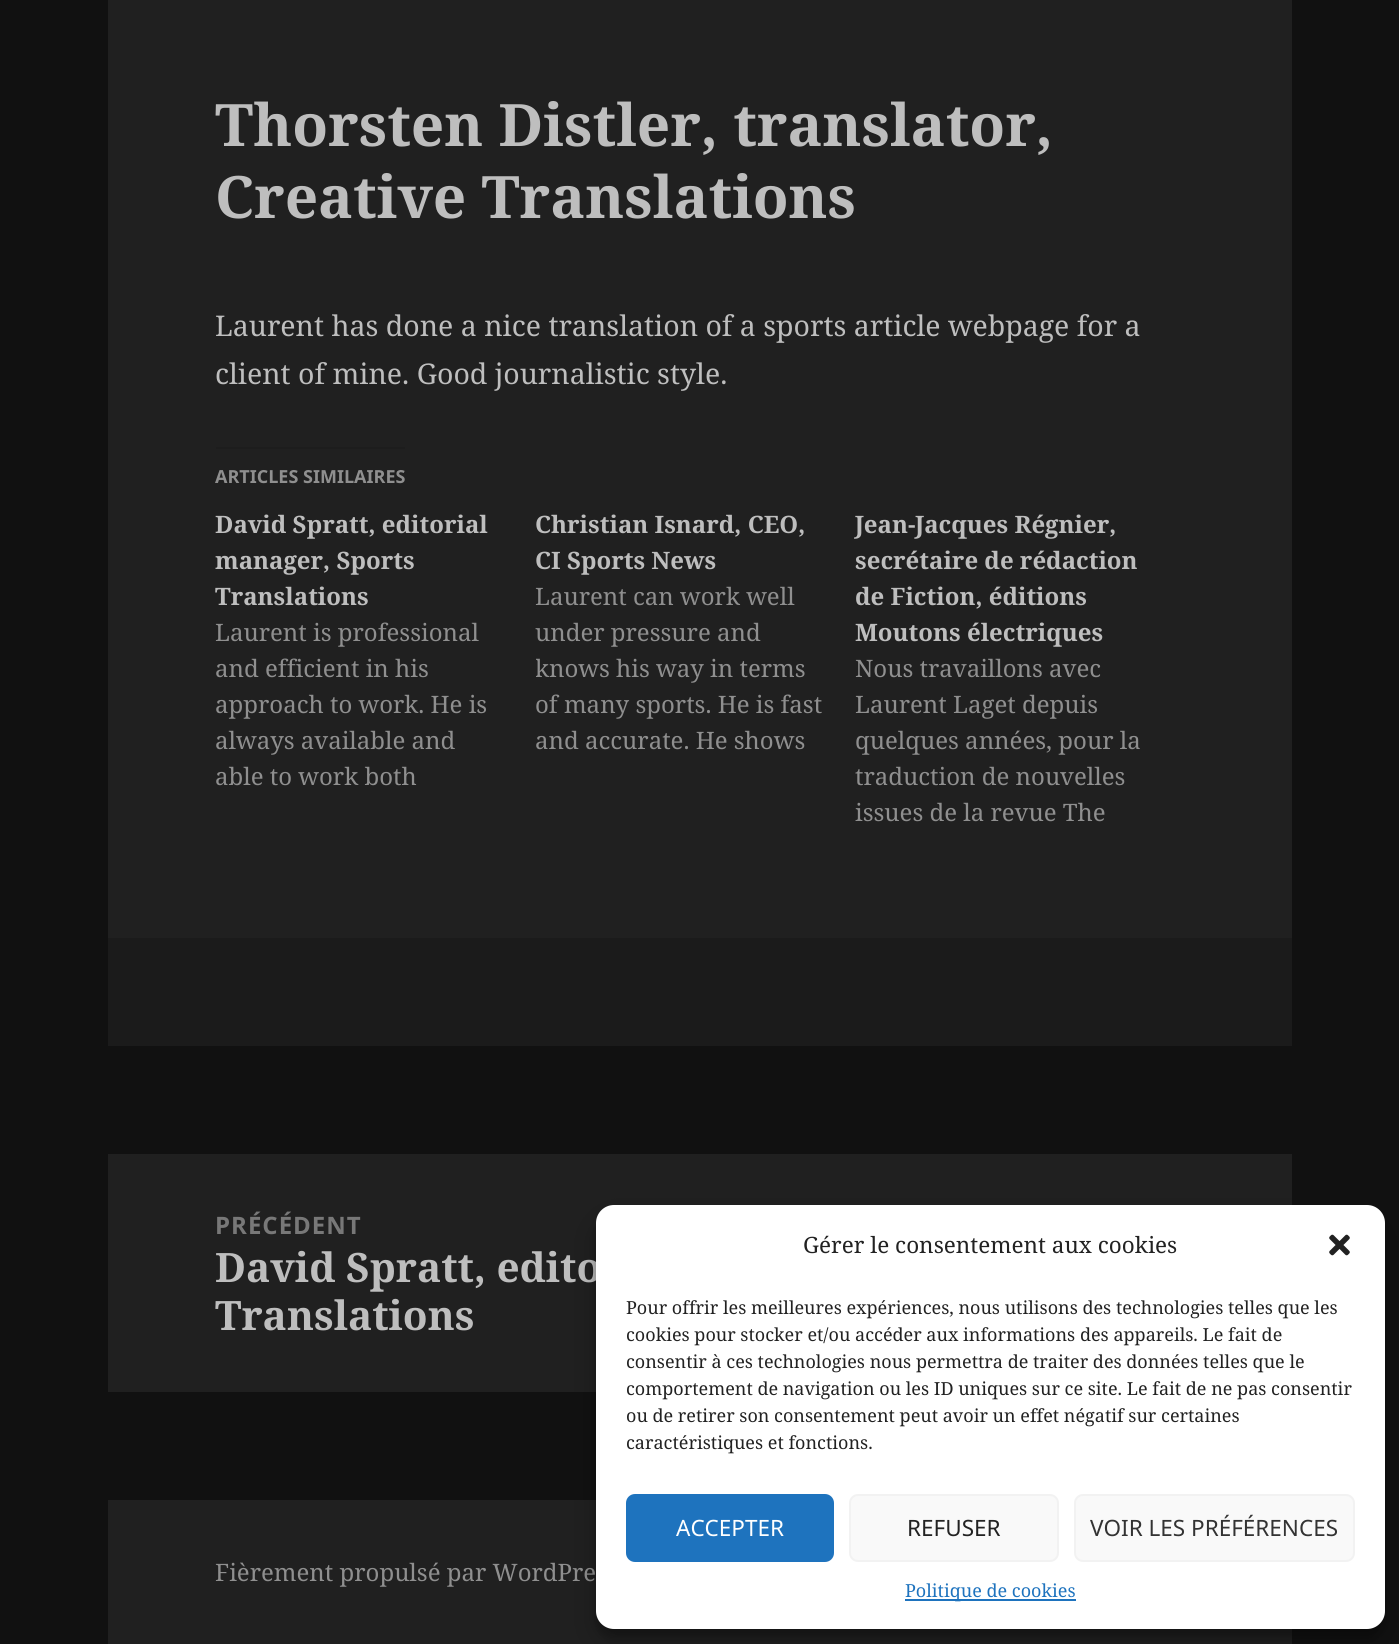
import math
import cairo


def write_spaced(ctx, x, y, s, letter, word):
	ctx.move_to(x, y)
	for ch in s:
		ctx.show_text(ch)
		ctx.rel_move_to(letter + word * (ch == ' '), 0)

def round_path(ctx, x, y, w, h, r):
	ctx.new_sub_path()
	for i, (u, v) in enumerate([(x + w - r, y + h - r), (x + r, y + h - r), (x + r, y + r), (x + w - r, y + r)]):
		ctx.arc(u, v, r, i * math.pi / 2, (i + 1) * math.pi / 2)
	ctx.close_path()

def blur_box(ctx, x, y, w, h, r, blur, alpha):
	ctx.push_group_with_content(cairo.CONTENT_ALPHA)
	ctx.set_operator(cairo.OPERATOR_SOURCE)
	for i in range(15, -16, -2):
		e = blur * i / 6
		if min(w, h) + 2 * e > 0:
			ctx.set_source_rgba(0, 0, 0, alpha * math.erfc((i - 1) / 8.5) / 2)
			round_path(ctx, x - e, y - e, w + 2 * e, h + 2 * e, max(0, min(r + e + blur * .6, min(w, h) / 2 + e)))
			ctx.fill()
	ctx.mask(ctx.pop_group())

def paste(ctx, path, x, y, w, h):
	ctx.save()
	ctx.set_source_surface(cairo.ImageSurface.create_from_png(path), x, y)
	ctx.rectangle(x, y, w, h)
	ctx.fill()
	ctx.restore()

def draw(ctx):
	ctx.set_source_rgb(0.067, 0.067, 0.067)
	ctx.paint()
	ctx.set_source_rgb(0.125, 0.125, 0.125)
	ctx.rectangle(108, 0, 1184, 938)
	ctx.fill()
	ctx.select_font_face('Noto Serif', cairo.FONT_SLANT_NORMAL, cairo.FONT_WEIGHT_BOLD)
	ctx.set_font_size(58.5)
	ctx.set_source_rgb(0.745, 0.745, 0.745)
	ctx.move_to(215, 146)
	ctx.show_text('Thorsten Distler, translator,')
	ctx.move_to(215, 218)
	ctx.show_text('Creative Translations')
	ctx.select_font_face('Noto Serif')
	ctx.set_font_size(28.5)
	ctx.move_to(215, 336)
	ctx.show_text('Laurent has done a nice translation of a sports article webpage for a')
	ctx.move_to(215, 384)
	ctx.show_text('client of mine. Good journalistic style.')
	ctx.set_source_rgb(0.114, 0.114, 0.114)
	ctx.rectangle(216, 447, 189, 2)
	ctx.fill()
	ctx.select_font_face('Noto Sans', cairo.FONT_SLANT_NORMAL, cairo.FONT_WEIGHT_BOLD)
	ctx.set_font_size(18)
	ctx.set_source_rgb(0.561, 0.561, 0.561)
	ctx.move_to(215, 483)
	ctx.show_text('ARTICLES SIMILAIRES')
	ctx.select_font_face('Noto Serif', cairo.FONT_SLANT_NORMAL, cairo.FONT_WEIGHT_BOLD)
	ctx.set_font_size(24)
	ctx.set_source_rgb(0.745, 0.745, 0.745)
	for x, y, s in [
		(215, 533, 'David Spratt, editorial'),
		(215, 569, 'manager, Sports'),
		(215, 605, 'Translations'),
	]:
		ctx.move_to(x, y)
		ctx.show_text(s)
	ctx.select_font_face('Noto Serif')
	ctx.set_source_rgb(0.561, 0.561, 0.561)
	for x, y, s in [
		(215, 641, 'Laurent is professional'),
		(215, 677, 'and efficient in his'),
		(215, 713, 'approach to work. He is'),
		(215, 749, 'always available and'),
		(215, 785, 'able to work both'),
	]:
		ctx.move_to(x, y)
		ctx.show_text(s)
	ctx.select_font_face('Noto Serif', cairo.FONT_SLANT_NORMAL, cairo.FONT_WEIGHT_BOLD)
	ctx.set_source_rgb(0.745, 0.745, 0.745)
	ctx.move_to(535, 533)
	ctx.show_text('Christian Isnard, CEO,')
	ctx.move_to(535, 569)
	ctx.show_text('CI Sports News')
	ctx.select_font_face('Noto Serif')
	ctx.set_source_rgb(0.561, 0.561, 0.561)
	ctx.move_to(535, 605)
	ctx.show_text('Laurent can work well')
	ctx.move_to(535, 641)
	ctx.show_text('under pressure and')
	ctx.save()
	ctx.rectangle(536, 578, 289, 180)
	ctx.clip()
	ctx.move_to(535, 677)
	ctx.show_text('knows his way in terms')
	ctx.restore()
	ctx.move_to(535, 713)
	ctx.show_text('of many sports. He is fast')
	ctx.move_to(535, 749)
	ctx.show_text('and accurate. He shows')
	ctx.select_font_face('Noto Serif', cairo.FONT_SLANT_NORMAL, cairo.FONT_WEIGHT_BOLD)
	ctx.set_source_rgb(0.745, 0.745, 0.745)
	for x, y, s in [
		(855, 533, 'Jean-Jacques Régnier,'),
		(855, 569, 'secrétaire de rédaction'),
		(855, 605, 'de Fiction, éditions'),
		(855, 641, 'Moutons électriques'),
	]:
		ctx.move_to(x, y)
		ctx.show_text(s)
	ctx.select_font_face('Noto Serif')
	ctx.set_source_rgb(0.561, 0.561, 0.561)
	for x, y, s in [
		(855, 677, 'Nous travaillons avec'),
		(855, 713, 'Laurent Laget depuis'),
		(855, 749, 'quelques années, pour la'),
		(855, 785, 'traduction de nouvelles'),
		(855, 821, 'issues de la revue The'),
	]:
		ctx.move_to(x, y)
		ctx.show_text(s)
	ctx.set_source_rgb(0.106, 0.106, 0.106)
	ctx.rectangle(108, 938, 1184, 108)
	ctx.fill()
	ctx.set_source_rgb(0.125, 0.125, 0.125)
	ctx.rectangle(108, 1154, 1184, 238)
	ctx.fill()
	ctx.select_font_face('Noto Sans', cairo.FONT_SLANT_NORMAL, cairo.FONT_WEIGHT_BOLD)
	ctx.set_source_rgb(0.471, 0.471, 0.471)
	write_spaced(ctx, 215, 1234, 'PRÉCÉDENT', 1, 0)
	ctx.select_font_face('Noto Serif', cairo.FONT_SLANT_NORMAL, cairo.FONT_WEIGHT_BOLD)
	ctx.set_font_size(40.5)
	ctx.set_source_rgb(0.745, 0.745, 0.745)
	ctx.move_to(215, 1282)
	ctx.show_text('David Spratt, edito')
	ctx.move_to(215, 1330)
	ctx.show_text('Translations')
	ctx.set_source_rgb(0.125, 0.125, 0.125)
	ctx.rectangle(108, 1500, 1184, 144)
	ctx.fill()
	ctx.select_font_face('Noto Serif')
	ctx.set_font_size(24)
	ctx.set_source_rgb(0.561, 0.561, 0.561)
	ctx.move_to(215, 1581)
	ctx.show_text('Fièrement propulsé par WordPre')
	ctx.set_source_rgb(0, 0, 0)
	blur_box(ctx, 596, 1214, 789, 424, 18, 4.5, 0.23)
	blur_box(ctx, 596, 1220, 789, 424, 18, 15, 0.19)
	ctx.set_source_rgb(1, 1, 1)
	round_path(ctx, 596, 1205, 789, 424, 18)
	ctx.fill()
	ctx.set_font_size(22.5)
	ctx.set_source_rgb(0.133, 0.133, 0.133)
	ctx.move_to(803, 1253)
	ctx.show_text('Gérer le consentement aux cookies')
	paste(ctx, 'media/1.png', 1329, 1234, 21, 22)
	ctx.set_font_size(18)
	for x, y, s in [
		(626, 1314, 'Pour offrir les meilleures expériences, nous utilisons des technologies telles que les'),
		(626, 1341, 'cookies pour stocker et/ou accéder aux informations des appareils. Le fait de'),
		(626, 1368, 'consentir à ces technologies nous permettra de traiter des données telles que le'),
		(626, 1395, 'comportement de navigation ou les ID uniques sur ce site. Le fait de ne pas consentir'),
		(626, 1422, 'ou de retirer son consentement peut avoir un effet négatif sur certaines'),
		(626, 1449, 'caractéristiques et fonctions.'),
	]:
		ctx.move_to(x, y)
		ctx.show_text(s)
	ctx.set_source_rgb(0.118, 0.451, 0.745)
	round_path(ctx, 627, 1495, 206, 66, 8)
	ctx.fill_preserve()
	ctx.stroke()
	ctx.select_font_face('Noto Sans')
	ctx.set_font_size(22.5)
	ctx.set_source_rgb(1, 1, 1)
	ctx.move_to(676, 1536)
	ctx.show_text('ACCEPTER')
	ctx.set_source_rgb(0.976, 0.976, 0.976)
	round_path(ctx, 850, 1495, 208, 66, 8)
	ctx.fill_preserve()
	ctx.set_source_rgb(0.949, 0.949, 0.949)
	ctx.stroke()
	ctx.set_source_rgb(0.133, 0.133, 0.133)
	ctx.move_to(907, 1536)
	ctx.show_text('REFUSER')
	ctx.set_source_rgb(0.976, 0.976, 0.976)
	round_path(ctx, 1075, 1495, 279, 66, 8)
	ctx.fill_preserve()
	ctx.set_source_rgb(0.949, 0.949, 0.949)
	ctx.stroke()
	ctx.set_source_rgb(0.2, 0.2, 0.2)
	ctx.move_to(1090, 1536)
	ctx.show_text('VOIR LES PRÉFÉRENCES')
	ctx.set_source_rgb(0.118, 0.451, 0.745)
	ctx.rectangle(905, 1599, 171, 2)
	ctx.fill()
	ctx.select_font_face('Noto Serif')
	ctx.set_font_size(18)
	ctx.move_to(905, 1597)
	ctx.show_text('Politique de cookies')


surface = cairo.ImageSurface(cairo.FORMAT_RGB24, 1399, 1644)
ctx = cairo.Context(surface)
options = cairo.FontOptions()
options.set_hint_metrics(cairo.HINT_METRICS_OFF)
options.set_hint_style(cairo.HINT_STYLE_NONE)
ctx.set_font_options(options)
ctx.set_miter_limit(4)
draw(ctx)
surface.write_to_png('image.png')
